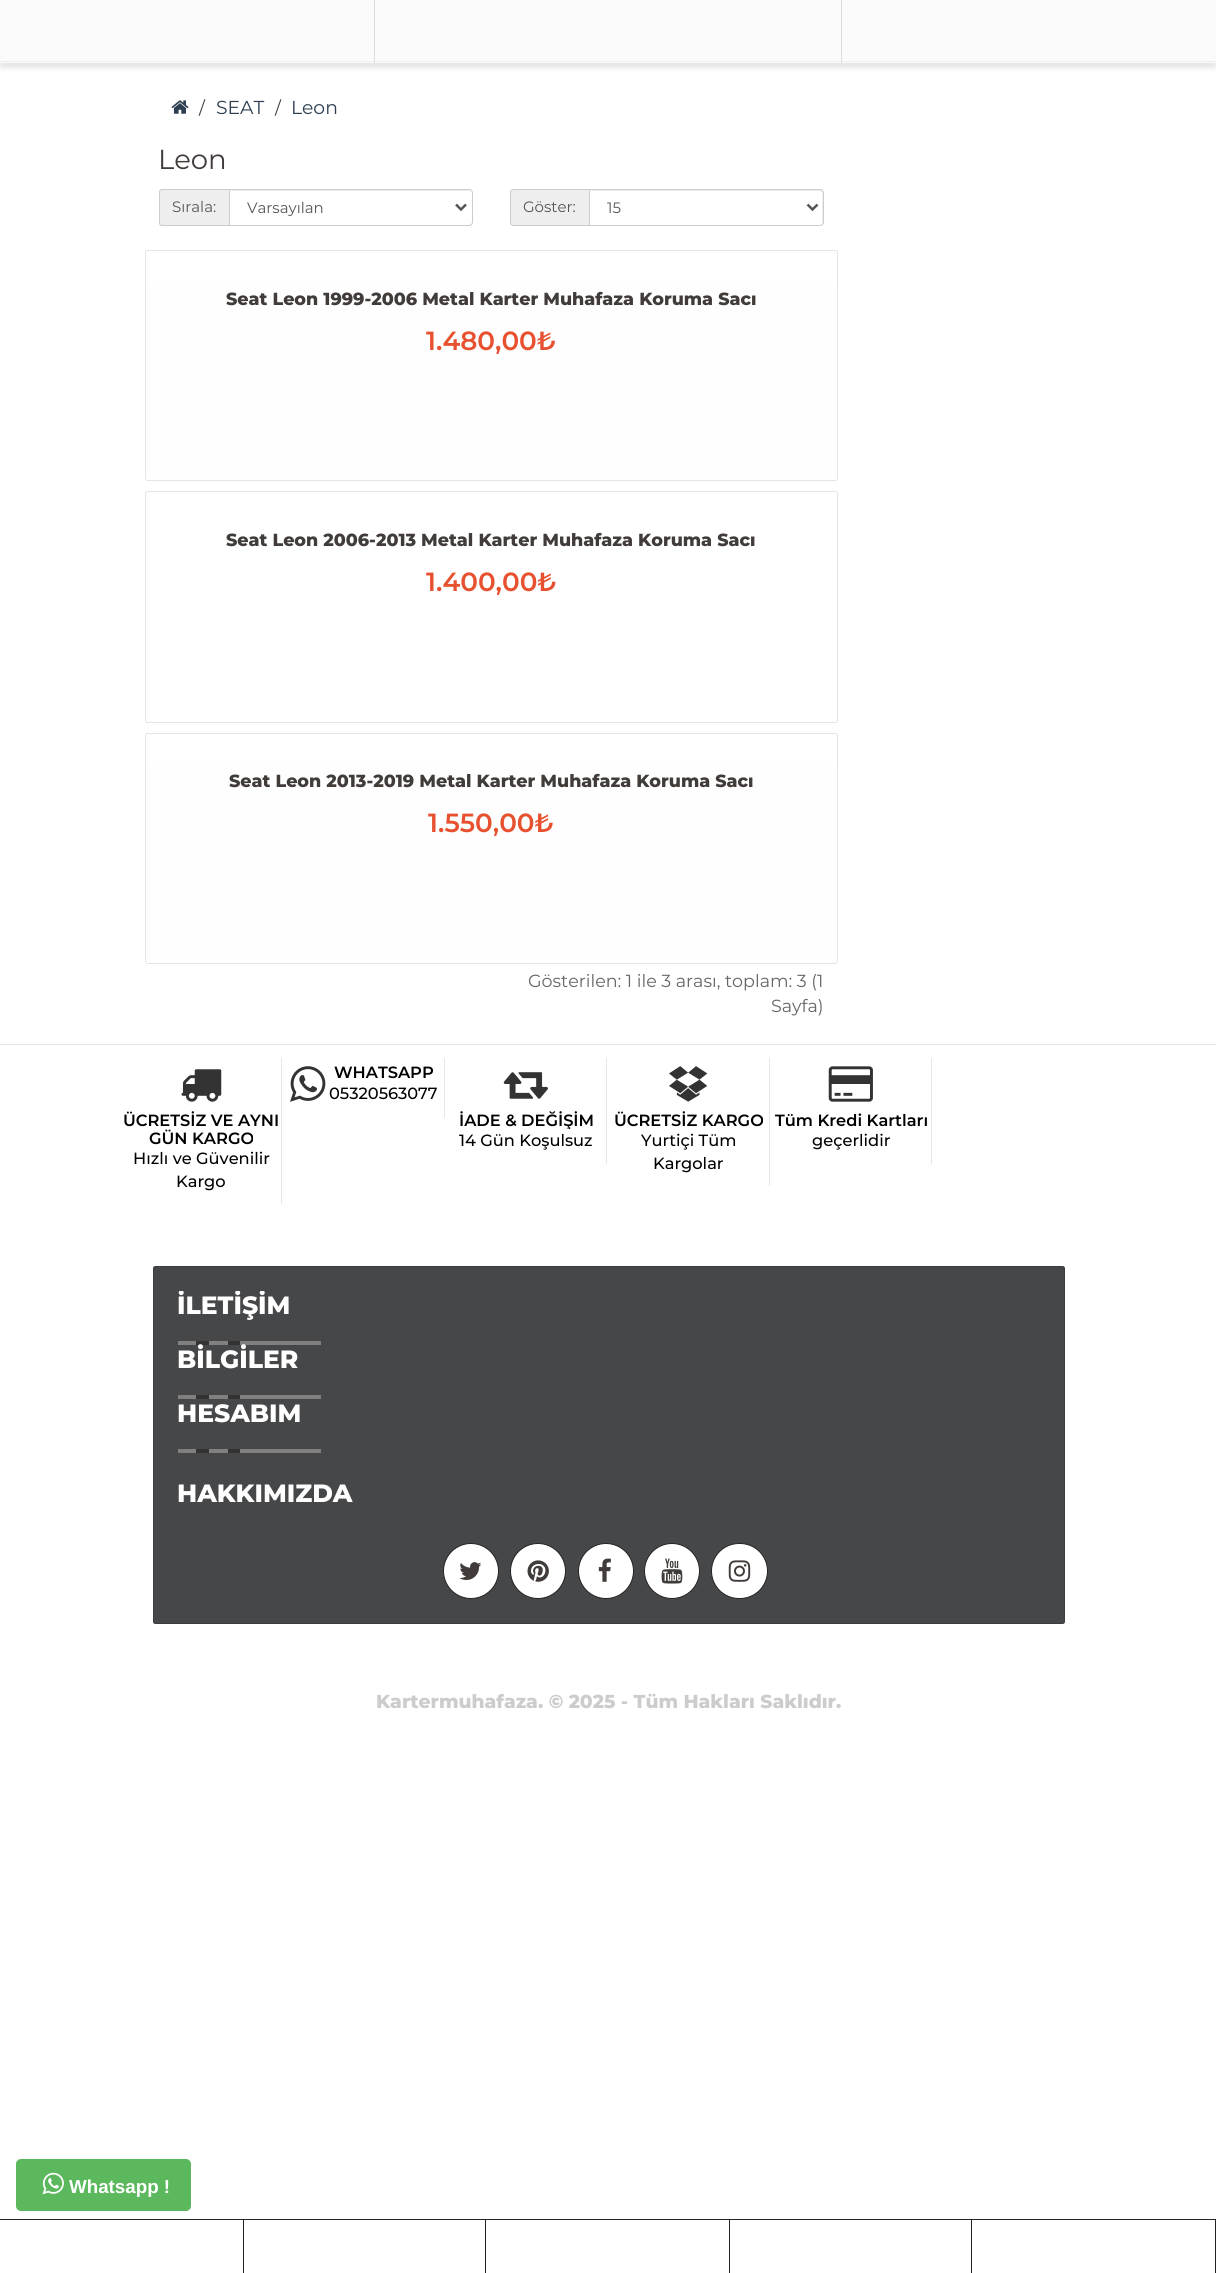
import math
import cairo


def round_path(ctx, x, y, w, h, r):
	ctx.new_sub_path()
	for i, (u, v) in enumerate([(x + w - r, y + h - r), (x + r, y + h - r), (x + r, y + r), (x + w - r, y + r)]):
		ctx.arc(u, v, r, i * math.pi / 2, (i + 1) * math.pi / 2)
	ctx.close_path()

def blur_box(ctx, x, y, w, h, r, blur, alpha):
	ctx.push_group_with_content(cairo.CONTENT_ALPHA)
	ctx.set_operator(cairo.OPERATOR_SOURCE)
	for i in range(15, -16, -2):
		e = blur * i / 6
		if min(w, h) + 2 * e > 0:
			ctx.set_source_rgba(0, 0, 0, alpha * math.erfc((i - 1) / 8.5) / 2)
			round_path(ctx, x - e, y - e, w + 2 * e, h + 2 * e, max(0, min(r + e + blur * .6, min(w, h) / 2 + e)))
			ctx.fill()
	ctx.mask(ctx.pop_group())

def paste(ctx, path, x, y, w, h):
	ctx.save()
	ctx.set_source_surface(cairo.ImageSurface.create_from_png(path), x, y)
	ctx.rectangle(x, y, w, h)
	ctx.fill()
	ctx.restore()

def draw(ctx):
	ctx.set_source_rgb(1, 1, 1)
	ctx.paint()
	ctx.set_source_rgb(0.894, 0.898, 0.902)
	blur_box(ctx, 0, 5, 1216, 63, 0, 2.5, 1)
	ctx.set_source_rgb(0.984, 0.984, 0.984)
	ctx.rectangle(0, 0, 1216, 63)
	ctx.fill()
	ctx.set_source_rgb(0.933, 0.933, 0.933)
	ctx.rectangle(0, 61, 1216, 1)
	ctx.fill()
	ctx.set_source_rgb(0.867, 0.867, 0.867)
	ctx.rectangle(841, 0, 1, 63)
	ctx.rectangle(374, 0, 1, 63)
	ctx.fill()
	paste(ctx, 'media/1.png', 171, 100, 18, 14)
	ctx.select_font_face('Montserrat')
	ctx.set_font_size(17.5)
	ctx.set_source_rgb(0.255, 0.235, 0.224)
	ctx.move_to(199, 114)
	ctx.show_text('/')
	ctx.set_font_size(18.75)
	ctx.set_source_rgb(0.173, 0.243, 0.314)
	ctx.move_to(216, 114)
	ctx.show_text('SEAT')
	ctx.set_font_size(17.5)
	ctx.set_source_rgb(0.255, 0.235, 0.224)
	ctx.move_to(275, 114)
	ctx.show_text('/')
	ctx.set_font_size(18.75)
	ctx.set_source_rgb(0.173, 0.243, 0.314)
	ctx.move_to(291, 114)
	ctx.show_text('Leon')
	ctx.set_font_size(27.5)
	ctx.set_source_rgb(0.255, 0.235, 0.224)
	ctx.move_to(158, 169)
	ctx.show_text('Leon')
	ctx.set_source_rgb(0.933, 0.933, 0.933)
	ctx.new_path()
	ctx.move_to(163, 189)
	ctx.line_to(229, 189)
	ctx.line_to(229, 226)
	ctx.line_to(163, 226)
	ctx.curve_to(161, 226, 159, 224, 159, 222)
	ctx.line_to(159, 193)
	ctx.curve_to(159, 191, 161, 189, 163, 189)
	ctx.close_path()
	ctx.fill()
	ctx.set_source_rgb(0.8, 0.8, 0.8)
	ctx.set_fill_rule(cairo.FILL_RULE_EVEN_ODD)
	ctx.new_path()
	ctx.move_to(162, 189)
	ctx.line_to(229, 189)
	ctx.line_to(229, 226)
	ctx.line_to(162, 226)
	ctx.curve_to(160, 226, 159, 225, 159, 222)
	ctx.line_to(159, 192)
	ctx.curve_to(159, 190, 160, 189, 162, 189)
	ctx.close_path()
	ctx.move_to(162, 190)
	ctx.line_to(229, 190)
	ctx.line_to(229, 225)
	ctx.line_to(162, 225)
	ctx.curve_to(161, 225, 160, 224, 160, 222)
	ctx.line_to(160, 192)
	ctx.curve_to(160, 191, 161, 190, 162, 190)
	ctx.close_path()
	ctx.fill()
	ctx.set_font_size(15)
	ctx.set_source_rgb(0.333, 0.333, 0.333)
	ctx.move_to(172, 212)
	ctx.show_text('Sırala:')
	ctx.set_source_rgb(0.925, 0.925, 0.925)
	ctx.set_fill_rule(cairo.FILL_RULE_WINDING)
	ctx.new_path()
	ctx.move_to(230, 191)
	ctx.line_to(469, 191)
	ctx.curve_to(470, 191, 471, 192, 471, 194)
	ctx.line_to(471, 192)
	ctx.curve_to(471, 191, 470, 190, 468, 190)
	ctx.line_to(230, 190)
	ctx.close_path()
	ctx.fill()
	ctx.new_path()
	ctx.move_to(229.5, 189.5)
	ctx.line_to(469, 189.5)
	ctx.curve_to(471, 189.5, 472.5, 191, 472.5, 193)
	ctx.line_to(472.5, 222)
	ctx.curve_to(472.5, 224, 471, 225.5, 469, 225.5)
	ctx.line_to(229.5, 225.5)
	ctx.close_path()
	ctx.set_source_rgb(0.8, 0.8, 0.8)
	ctx.set_line_width(1)
	ctx.stroke()
	ctx.new_path()
	ctx.move_to(456, 204.5)
	ctx.line_to(461, 209.5)
	ctx.line_to(466, 204.5)
	ctx.set_source_rgb(0.333, 0.333, 0.333)
	ctx.set_line_width(2.5)
	ctx.stroke()
	ctx.move_to(247, 213)
	ctx.show_text('Varsayılan')
	ctx.set_source_rgb(0.933, 0.933, 0.933)
	ctx.new_path()
	ctx.move_to(514, 189)
	ctx.line_to(589, 189)
	ctx.line_to(589, 226)
	ctx.line_to(514, 226)
	ctx.curve_to(512, 226, 510, 224, 510, 222)
	ctx.line_to(510, 193)
	ctx.curve_to(510, 191, 512, 189, 514, 189)
	ctx.close_path()
	ctx.fill()
	ctx.set_source_rgb(0.8, 0.8, 0.8)
	ctx.set_fill_rule(cairo.FILL_RULE_EVEN_ODD)
	ctx.new_path()
	ctx.move_to(514, 189)
	ctx.line_to(589, 189)
	ctx.line_to(589, 226)
	ctx.line_to(514, 226)
	ctx.curve_to(512, 226, 510, 225, 510, 222)
	ctx.line_to(510, 192)
	ctx.curve_to(510, 190, 512, 189, 514, 189)
	ctx.close_path()
	ctx.move_to(514, 190)
	ctx.line_to(589, 190)
	ctx.line_to(589, 225)
	ctx.line_to(514, 225)
	ctx.curve_to(512, 225, 511, 224, 511, 222)
	ctx.line_to(511, 192)
	ctx.curve_to(511, 191, 512, 190, 514, 190)
	ctx.close_path()
	ctx.fill()
	ctx.set_source_rgb(0.333, 0.333, 0.333)
	ctx.move_to(523, 212)
	ctx.show_text('Göster:')
	ctx.set_source_rgb(0.925, 0.925, 0.925)
	ctx.set_fill_rule(cairo.FILL_RULE_WINDING)
	ctx.new_path()
	ctx.move_to(590, 191)
	ctx.line_to(820, 191)
	ctx.curve_to(824, 191, 822, 203, 822, 204)
	ctx.line_to(822, 225)
	ctx.curve_to(823, 224, 823, 223, 823, 222)
	ctx.line_to(823, 192)
	ctx.curve_to(823, 191, 822, 190, 820, 190)
	ctx.line_to(590, 190)
	ctx.close_path()
	ctx.fill()
	ctx.new_path()
	ctx.move_to(589.5, 189.5)
	ctx.line_to(820, 189.5)
	ctx.curve_to(822, 189.5, 823.5, 191, 823.5, 193)
	ctx.line_to(823.5, 222)
	ctx.curve_to(823.5, 224, 822, 225.5, 820, 225.5)
	ctx.line_to(589.5, 225.5)
	ctx.close_path()
	ctx.set_source_rgb(0.8, 0.8, 0.8)
	ctx.set_line_width(1)
	ctx.stroke()
	ctx.new_path()
	ctx.move_to(807.5, 204.5)
	ctx.line_to(812.5, 209.5)
	ctx.line_to(817.5, 204.5)
	ctx.set_source_rgb(0.333, 0.333, 0.333)
	ctx.set_line_width(2.5)
	ctx.stroke()
	ctx.move_to(607, 213)
	ctx.show_text('15')
	round_path(ctx, 145.5, 250.5, 692, 230, 2)
	ctx.set_source_rgb(0.898, 0.898, 0.898)
	ctx.set_line_width(1)
	ctx.stroke()
	ctx.set_source_rgb(0.996, 0.996, 0.996)
	ctx.new_path()
	ctx.move_to(146, 284)
	ctx.line_to(836, 284)
	ctx.line_to(836, 479)
	ctx.curve_to(836, 479.5, 835.5, 480, 835, 480)
	ctx.line_to(147, 480)
	ctx.curve_to(146.5, 480, 146, 479.5, 146, 479)
	ctx.close_path()
	ctx.fill()
	ctx.select_font_face('Montserrat ExtraBold')
	ctx.set_font_size(17.5)
	ctx.set_source_rgb(0.255, 0.235, 0.224)
	ctx.move_to(226, 305)
	ctx.show_text('Seat Leon 1999-2006 Metal Karter Muhafaza Koruma Sacı')
	ctx.select_font_face('Montserrat SemiBold')
	ctx.set_font_size(26.25)
	ctx.set_source_rgb(0.906, 0.318, 0.184)
	ctx.move_to(426, 350)
	ctx.show_text('1.480,00₺')
	round_path(ctx, 145.5, 491.5, 692, 231, 2)
	ctx.set_source_rgb(0.898, 0.898, 0.898)
	ctx.stroke()
	ctx.select_font_face('Montserrat ExtraBold')
	ctx.set_font_size(17.5)
	ctx.set_source_rgb(0.255, 0.235, 0.224)
	ctx.move_to(226, 546)
	ctx.show_text('Seat Leon 2006-2013 Metal Karter Muhafaza Koruma Sacı')
	ctx.select_font_face('Montserrat SemiBold')
	ctx.set_font_size(26.25)
	ctx.set_source_rgb(0.906, 0.318, 0.184)
	ctx.move_to(426, 591)
	ctx.show_text('1.400,00₺')
	round_path(ctx, 145.5, 733.5, 692, 230, 2)
	ctx.set_source_rgb(0.898, 0.898, 0.898)
	ctx.stroke()
	ctx.set_source_rgb(0.996, 0.996, 0.996)
	ctx.new_path()
	ctx.move_to(146, 766)
	ctx.line_to(836, 766)
	ctx.line_to(836, 962)
	ctx.curve_to(836, 962.5, 835.5, 963, 835, 963)
	ctx.line_to(147, 963)
	ctx.curve_to(146.5, 963, 146, 962.5, 146, 962)
	ctx.close_path()
	ctx.fill()
	ctx.select_font_face('Montserrat ExtraBold')
	ctx.set_font_size(17.5)
	ctx.set_source_rgb(0.255, 0.235, 0.224)
	ctx.move_to(229, 787)
	ctx.show_text('Seat Leon 2013-2019 Metal Karter Muhafaza Koruma Sacı')
	ctx.select_font_face('Montserrat SemiBold')
	ctx.set_font_size(26.25)
	ctx.set_source_rgb(0.906, 0.318, 0.184)
	ctx.move_to(428, 832)
	ctx.show_text('1.550,00₺')
	ctx.select_font_face('Montserrat')
	ctx.set_font_size(17.5)
	ctx.set_source_rgb(0.4, 0.4, 0.4)
	ctx.move_to(528, 987)
	ctx.show_text('Gösterilen: 1 ile 3 arası, toplam: 3 (1')
	ctx.move_to(771, 1012)
	ctx.show_text('Sayfa)')
	ctx.set_source_rgb(0.361, 0.722, 0.361)
	round_path(ctx, 16, 2159, 175, 52, 5)
	ctx.fill()
	paste(ctx, 'media/2.png', 42, 2172, 22, 23)
	ctx.select_font_face('Liberation Sans', cairo.FONT_SLANT_NORMAL, cairo.FONT_WEIGHT_BOLD)
	ctx.set_font_size(18.75)
	ctx.set_source_rgb(1, 1, 1)
	ctx.move_to(69, 2193)
	ctx.show_text('Whatsapp !')
	ctx.set_source_rgb(0.902, 0.902, 0.902)
	ctx.rectangle(0, 1044, 1216, 1)
	ctx.fill()
	ctx.rectangle(444, 1058, 1, 60)
	ctx.fill()
	paste(ctx, 'media/3.png', 290, 1066, 36, 36)
	ctx.select_font_face('Montserrat SemiBold')
	ctx.set_font_size(16.25)
	ctx.set_source_rgb(0, 0, 0)
	ctx.move_to(334, 1078)
	ctx.show_text('WHATSAPP')
	ctx.select_font_face('Montserrat Medium')
	ctx.move_to(329, 1099)
	ctx.show_text('05320563077')
	ctx.set_source_rgb(0.902, 0.902, 0.902)
	ctx.rectangle(281, 1058, 1, 146)
	ctx.fill()
	paste(ctx, 'media/4.png', 181, 1069, 41, 33)
	ctx.select_font_face('Montserrat SemiBold')
	ctx.set_source_rgb(0, 0, 0)
	ctx.move_to(123, 1126)
	ctx.show_text('ÜCRETSİZ VE AYNI')
	ctx.move_to(149, 1144)
	ctx.show_text('GÜN KARGO')
	ctx.select_font_face('Montserrat Medium')
	ctx.move_to(133, 1164)
	ctx.show_text('Hızlı ve Güvenilir')
	ctx.move_to(176, 1187)
	ctx.show_text('Kargo')
	ctx.set_source_rgb(0.902, 0.902, 0.902)
	ctx.rectangle(606, 1058, 1, 106)
	ctx.fill()
	paste(ctx, 'media/5.png', 503, 1072, 45, 27)
	ctx.save()
	ctx.rectangle(459, 1111, 135, 18)
	ctx.clip()
	ctx.select_font_face('Montserrat SemiBold')
	ctx.set_source_rgb(0, 0, 0)
	ctx.move_to(459, 1126)
	ctx.show_text('İADE & DEĞİŞİM')
	ctx.restore()
	ctx.set_source_rgb(0, 0, 0)
	ctx.move_to(459, 1146)
	ctx.show_text('14 Gün Koşulsuz')
	ctx.set_source_rgb(0.902, 0.902, 0.902)
	ctx.rectangle(769, 1058, 1, 128)
	ctx.fill()
	paste(ctx, 'media/6.png', 669, 1066, 39, 36)
	ctx.select_font_face('Montserrat SemiBold')
	ctx.set_source_rgb(0, 0, 0)
	ctx.move_to(614, 1126)
	ctx.show_text('ÜCRETSİZ KARGO')
	ctx.select_font_face('Montserrat Medium')
	ctx.move_to(641, 1146)
	ctx.show_text('Yurtiçi Tüm')
	ctx.move_to(653, 1169)
	ctx.show_text('Kargolar')
	ctx.set_source_rgb(0.902, 0.902, 0.902)
	ctx.rectangle(931, 1058, 1, 106)
	ctx.fill()
	paste(ctx, 'media/7.png', 828, 1066, 45, 36)
	ctx.save()
	ctx.rectangle(775, 1111, 153, 18)
	ctx.clip()
	ctx.select_font_face('Montserrat SemiBold')
	ctx.set_source_rgb(0, 0, 0)
	ctx.move_to(775, 1126)
	ctx.show_text('Tüm Kredi Kartları')
	ctx.restore()
	ctx.set_source_rgb(0, 0, 0)
	ctx.move_to(812, 1146)
	ctx.show_text('geçerlidir')
	ctx.set_source_rgb(0.271, 0.278, 0.286)
	round_path(ctx, 153, 1266, 912, 358, 2.5)
	ctx.fill()
	ctx.set_source_rgb(0.259, 0.263, 0.271)
	ctx.new_path()
	ctx.move_to(155, 1269)
	ctx.line_to(1062, 1269)
	ctx.curve_to(1063, 1269, 1064, 1269, 1064, 1270)
	ctx.line_to(1064, 1269)
	ctx.line_to(1063, 1268)
	ctx.line_to(155, 1268)
	ctx.line_to(154, 1269)
	ctx.line_to(154, 1270)
	ctx.curve_to(154, 1269, 154, 1269, 155, 1269)
	ctx.close_path()
	ctx.fill()
	round_path(ctx, 153.5, 1266.5, 911, 357, 2)
	ctx.set_source_rgba(0.153, 0.173, 0.184, 0.36)
	ctx.stroke()
	ctx.save()
	ctx.rectangle(178, 1291, 862, 162)
	ctx.clip()
	ctx.select_font_face('Montserrat ExtraBold')
	ctx.set_font_size(25)
	ctx.set_source_rgb(1, 1, 1)
	ctx.move_to(177, 1314)
	ctx.show_text('İLETİŞİM')
	ctx.restore()
	ctx.set_source_rgb(0.502, 0.502, 0.502)
	ctx.rectangle(178, 1341, 143, 4)
	ctx.fill()
	ctx.set_source_rgb(0.2, 0.2, 0.2)
	ctx.rectangle(228, 1341, 12, 4)
	ctx.rectangle(196, 1341, 13, 4)
	ctx.fill()
	ctx.select_font_face('Montserrat ExtraBold')
	ctx.set_font_size(25)
	ctx.set_source_rgb(1, 1, 1)
	ctx.move_to(177, 1368)
	ctx.show_text('BİLGİLER')
	ctx.set_source_rgb(0.502, 0.502, 0.502)
	ctx.rectangle(178, 1395, 143, 4)
	ctx.fill()
	ctx.set_source_rgb(0.2, 0.2, 0.2)
	ctx.rectangle(228, 1395, 12, 4)
	ctx.rectangle(196, 1395, 13, 4)
	ctx.fill()
	ctx.set_source_rgb(1, 1, 1)
	ctx.move_to(177, 1422)
	ctx.show_text('HESABIM')
	ctx.set_source_rgb(0.502, 0.502, 0.502)
	ctx.rectangle(178, 1449, 143, 4)
	ctx.fill()
	ctx.set_source_rgb(0.2, 0.2, 0.2)
	ctx.rectangle(228, 1449, 12, 4)
	ctx.rectangle(196, 1449, 13, 4)
	ctx.fill()
	ctx.set_source_rgb(1, 1, 1)
	ctx.move_to(177, 1502)
	ctx.show_text('HAKKIMIZDA')
	ctx.new_path()
	ctx.arc(471, 1571, 27.5, 0, 2 * math.pi)
	ctx.fill_preserve()
	ctx.set_source_rgb(0.133, 0.133, 0.133)
	ctx.stroke()
	paste(ctx, 'media/8.png', 459, 1562, 23, 18)
	ctx.set_source_rgb(1, 1, 1)
	ctx.arc(538, 1571, 27.5, 0, 2 * math.pi)
	ctx.fill_preserve()
	ctx.set_source_rgb(0.133, 0.133, 0.133)
	ctx.stroke()
	paste(ctx, 'media/9.png', 527, 1560, 22, 22)
	ctx.set_source_rgb(1, 1, 1)
	ctx.arc(606, 1571, 27.5, 0, 2 * math.pi)
	ctx.fill_preserve()
	ctx.set_source_rgb(0.133, 0.133, 0.133)
	ctx.stroke()
	paste(ctx, 'media/10.png', 598, 1558, 13, 24)
	ctx.set_source_rgb(1, 1, 1)
	ctx.arc(672, 1571, 27.5, 0, 2 * math.pi)
	ctx.fill_preserve()
	ctx.set_source_rgb(0.133, 0.133, 0.133)
	ctx.stroke()
	paste(ctx, 'media/11.png', 661, 1558, 22, 26)
	ctx.set_source_rgb(1, 1, 1)
	round_path(ctx, 711.5, 1543.5, 56, 55, 27.5)
	ctx.fill_preserve()
	ctx.set_source_rgb(0.133, 0.133, 0.133)
	ctx.stroke()
	paste(ctx, 'media/12.png', 728, 1560, 23, 22)
	ctx.set_font_size(18.75)
	ctx.set_source_rgb(0.8, 0.8, 0.8)
	ctx.move_to(376, 1708)
	ctx.show_text('Kartermuhafaza. © 2025 - Tüm Hakları Saklıdır.')
	ctx.set_source_rgb(0.133, 0.133, 0.133)
	ctx.rectangle(0, 2219, 1216, 1)
	ctx.rectangle(243, 2220, 1, 53)
	ctx.rectangle(485, 2220, 1, 53)
	ctx.rectangle(729, 2220, 1, 53)
	ctx.rectangle(971, 2220, 1, 53)
	ctx.rectangle(1215, 2220, 1, 53)
	ctx.fill()


surface = cairo.ImageSurface(cairo.FORMAT_RGB24, 1216, 2273)
ctx = cairo.Context(surface)
options = cairo.FontOptions()
options.set_hint_metrics(cairo.HINT_METRICS_OFF)
options.set_hint_style(cairo.HINT_STYLE_NONE)
ctx.set_font_options(options)
ctx.set_miter_limit(4)
draw(ctx)
surface.write_to_png('image.png')
